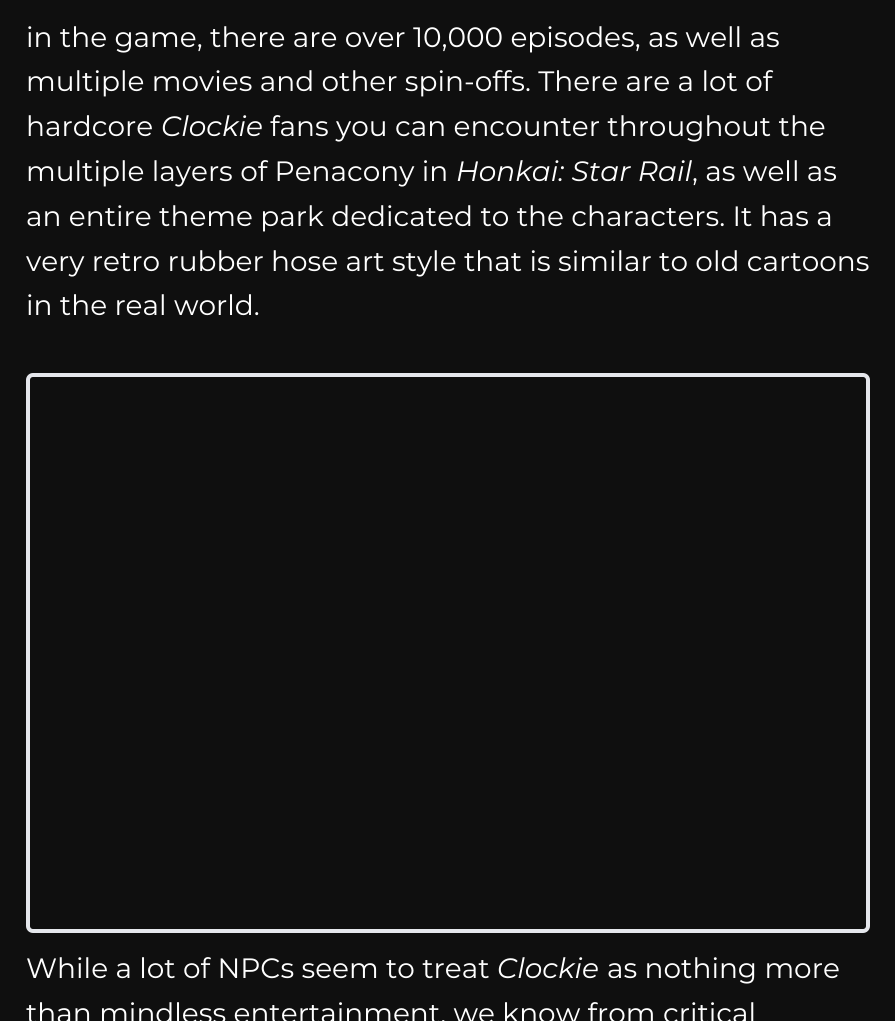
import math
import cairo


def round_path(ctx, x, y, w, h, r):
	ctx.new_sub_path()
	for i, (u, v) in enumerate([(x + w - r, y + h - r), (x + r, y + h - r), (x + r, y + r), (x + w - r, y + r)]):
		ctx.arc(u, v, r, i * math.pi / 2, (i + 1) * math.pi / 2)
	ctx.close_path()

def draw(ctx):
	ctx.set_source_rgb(0.059, 0.059, 0.059)
	ctx.paint()
	ctx.select_font_face('Montserrat')
	ctx.set_font_size(28)
	ctx.set_source_rgb(1, 1, 1)
	for x, y, s in [
		(26, 47, 'in the game, there are over 10,000 episodes, as well as'),
		(26, 91, 'multiple movies and other spin-offs. There are a lot of'),
		(26, 136, 'hardcore'),
	]:
		ctx.move_to(x, y)
		ctx.show_text(s)
	ctx.select_font_face('Montserrat', cairo.FONT_SLANT_ITALIC)
	ctx.move_to(161, 136)
	ctx.show_text('Clockie')
	ctx.select_font_face('Montserrat')
	ctx.move_to(270, 136)
	ctx.show_text('fans you can encounter throughout the')
	ctx.move_to(26, 181)
	ctx.show_text('multiple layers of Penacony in')
	ctx.select_font_face('Montserrat', cairo.FONT_SLANT_ITALIC)
	ctx.move_to(456, 181)
	ctx.show_text('Honkai: Star Rail')
	ctx.select_font_face('Montserrat')
	for x, y, s in [
		(692, 181, ', as well as'),
		(26, 226, 'an entire theme park dedicated to the characters. It has a'),
		(26, 271, 'very retro rubber hose art style that is similar to old cartoons'),
		(26, 315, 'in the real world.'),
	]:
		ctx.move_to(x, y)
		ctx.show_text(s)
	round_path(ctx, 28, 375, 840, 556, 5)
	ctx.set_source_rgb(0.898, 0.906, 0.922)
	ctx.set_line_width(4)
	ctx.stroke()
	ctx.set_source_rgb(1, 1, 1)
	ctx.move_to(26, 978)
	ctx.show_text('While a lot of NPCs seem to treat')
	ctx.select_font_face('Montserrat', cairo.FONT_SLANT_ITALIC)
	ctx.move_to(497, 978)
	ctx.show_text('Clockie')
	ctx.select_font_face('Montserrat')
	ctx.move_to(607, 978)
	ctx.show_text('as nothing more')
	ctx.move_to(26, 1023)
	ctx.show_text('than mindless entertainment, we know from critical')


surface = cairo.ImageSurface(cairo.FORMAT_RGB24, 895, 1021)
ctx = cairo.Context(surface)
options = cairo.FontOptions()
options.set_hint_metrics(cairo.HINT_METRICS_OFF)
options.set_hint_style(cairo.HINT_STYLE_NONE)
ctx.set_font_options(options)
ctx.set_miter_limit(4)
draw(ctx)
surface.write_to_png('image.png')
